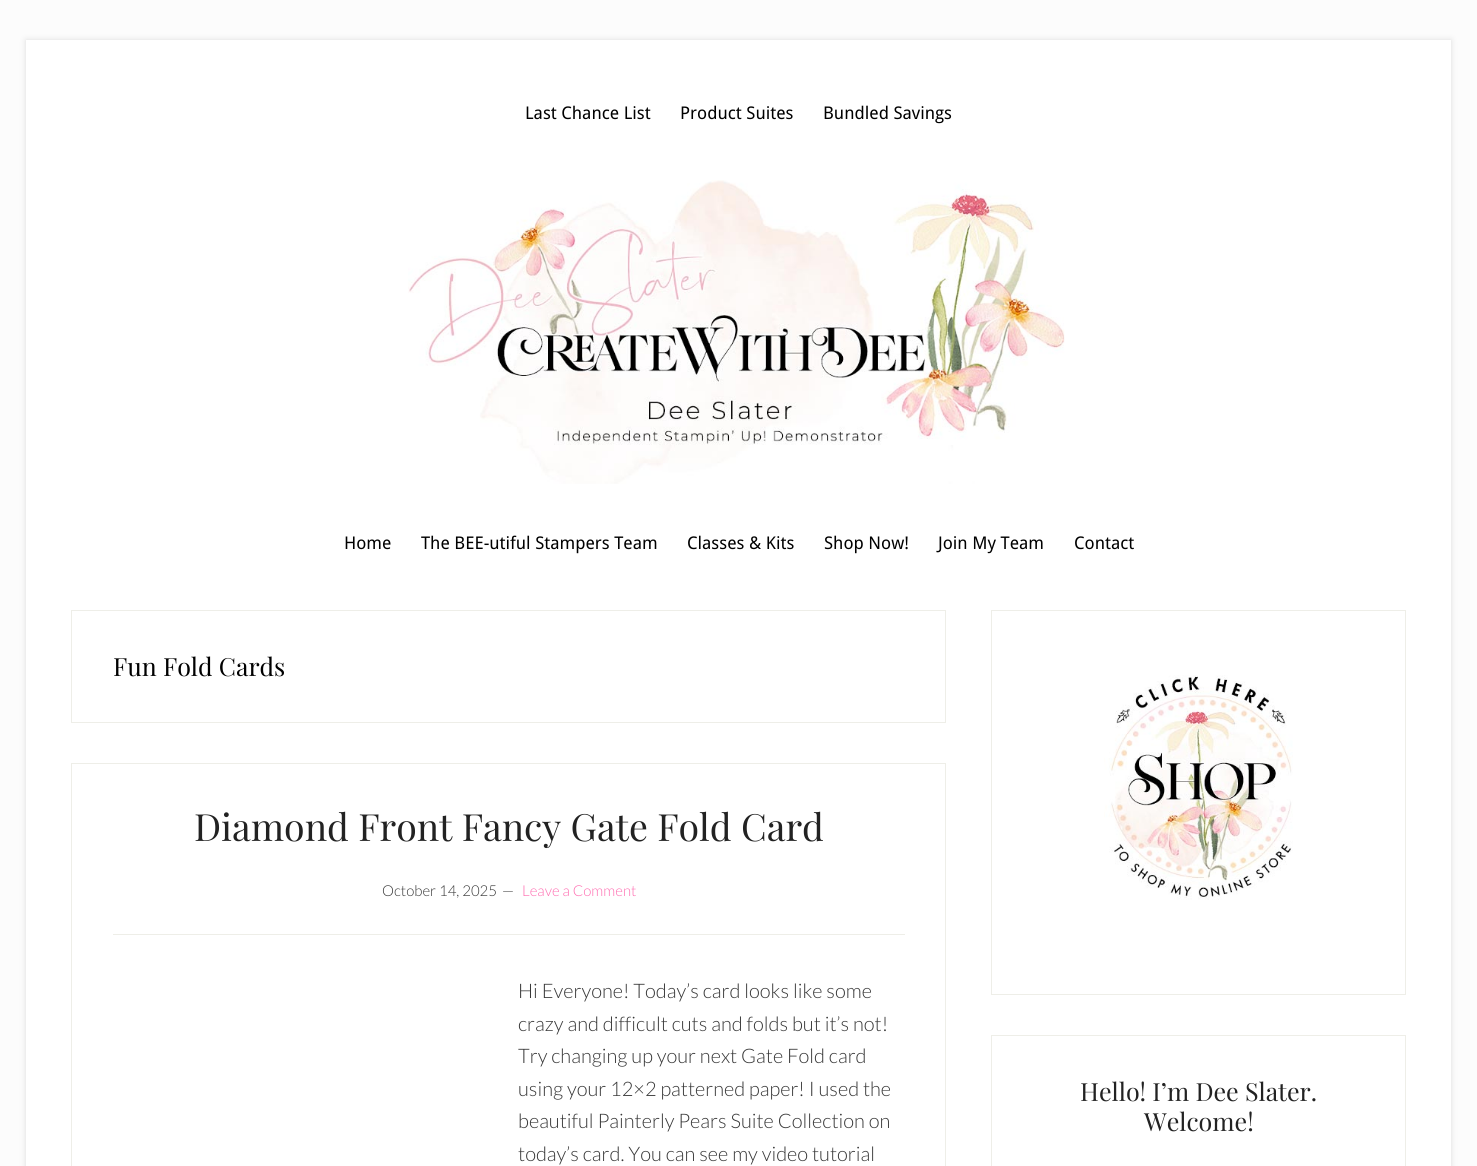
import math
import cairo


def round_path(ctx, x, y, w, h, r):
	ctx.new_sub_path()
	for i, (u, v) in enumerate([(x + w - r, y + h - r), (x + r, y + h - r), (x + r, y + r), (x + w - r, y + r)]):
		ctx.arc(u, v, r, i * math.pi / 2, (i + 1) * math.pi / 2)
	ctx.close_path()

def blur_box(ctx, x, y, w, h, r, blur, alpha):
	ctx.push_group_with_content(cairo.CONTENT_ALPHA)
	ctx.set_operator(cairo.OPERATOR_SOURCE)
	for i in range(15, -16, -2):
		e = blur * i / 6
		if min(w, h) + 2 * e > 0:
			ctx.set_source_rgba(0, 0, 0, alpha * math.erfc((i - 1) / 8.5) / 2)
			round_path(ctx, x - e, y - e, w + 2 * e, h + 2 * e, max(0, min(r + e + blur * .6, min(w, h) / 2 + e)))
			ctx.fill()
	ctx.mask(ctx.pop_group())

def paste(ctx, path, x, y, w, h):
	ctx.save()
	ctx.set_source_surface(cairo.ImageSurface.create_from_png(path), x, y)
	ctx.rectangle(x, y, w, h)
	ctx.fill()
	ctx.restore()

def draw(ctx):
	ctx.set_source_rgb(0.988, 0.988, 0.988)
	ctx.paint()
	ctx.set_source_rgb(0.867, 0.867, 0.867)
	blur_box(ctx, 26, 40, 1425, 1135, 0, 3, 1)
	ctx.set_source_rgb(1, 1, 1)
	ctx.rectangle(26, 40, 1425, 1126)
	ctx.fill()
	ctx.select_font_face('Droid Sans')
	ctx.set_font_size(17.5)
	ctx.set_source_rgb(0, 0, 0)
	for x, y, s in [
		(525, 119, 'Last Chance List'),
		(680, 119, 'Product Suites'),
		(823, 119, 'Bundled Savings'),
	]:
		ctx.move_to(x, y)
		ctx.show_text(s)
	paste(ctx, 'media/1.png', 408, 180, 657, 304)
	for x, y, s in [
		(344, 549, 'Home'),
		(421, 549, 'The BEE-utiful Stampers Team'),
		(687, 549, 'Classes & Kits'),
		(824, 549, 'Shop Now!'),
		(938, 549, 'Join My Team'),
		(1074, 549, 'Contact'),
	]:
		ctx.move_to(x, y)
		ctx.show_text(s)
	ctx.rectangle(71.5, 610.5, 874, 112)
	ctx.set_source_rgb(0.933, 0.933, 0.91)
	ctx.set_line_width(1)
	ctx.stroke()
	ctx.select_font_face('Playfair Display')
	ctx.set_font_size(25)
	ctx.set_source_rgb(0, 0, 0)
	ctx.move_to(113, 676)
	ctx.show_text('Fun Fold Cards')
	ctx.rectangle(71.5, 763.5, 874, 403)
	ctx.set_source_rgb(0.933, 0.933, 0.91)
	ctx.stroke()
	ctx.rectangle(113, 934, 792, 1)
	ctx.fill()
	ctx.set_font_size(37.5)
	ctx.set_source_rgb(0.133, 0.133, 0.133)
	ctx.move_to(194, 841)
	ctx.show_text('Diamond Front Fancy Gate Fold Card')
	ctx.select_font_face('Lato Light')
	ctx.set_font_size(15)
	ctx.set_source_rgb(0.22, 0.22, 0.22)
	ctx.move_to(382, 896)
	ctx.show_text('October 14, 2025')
	ctx.move_to(502, 896)
	ctx.show_text('—')
	ctx.set_source_rgb(1, 0.427, 0.694)
	ctx.move_to(522, 896)
	ctx.show_text('Leave a Comment')
	ctx.set_font_size(20)
	ctx.set_source_rgb(0.22, 0.22, 0.22)
	for x, y, s in [
		(518, 998, 'Hi Everyone! Today’s card looks like some'),
		(518, 1031, 'crazy and difficult cuts and folds but it’s not!'),
		(518, 1063, 'Try changing up your next Gate Fold card'),
		(518, 1096, 'using your 12×2 patterned paper! I used the'),
		(518, 1128, 'beautiful Painterly Pears Suite Collection on'),
		(518, 1161, 'today’s card. You can see my video tutorial'),
	]:
		ctx.move_to(x, y)
		ctx.show_text(s)
	ctx.rectangle(991.5, 610.5, 414, 384)
	ctx.set_source_rgb(0.933, 0.933, 0.91)
	ctx.stroke()
	paste(ctx, 'media/2.png', 1104, 675, 189, 225)
	ctx.rectangle(991.5, 1035.5, 414, 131)
	ctx.stroke()
	ctx.select_font_face('Playfair Display')
	ctx.set_font_size(25)
	ctx.set_source_rgb(0.133, 0.133, 0.133)
	ctx.move_to(1080, 1101)
	ctx.show_text('Hello! I’m Dee Slater.')
	ctx.move_to(1144, 1131)
	ctx.show_text('Welcome!')


surface = cairo.ImageSurface(cairo.FORMAT_RGB24, 1477, 1166)
ctx = cairo.Context(surface)
options = cairo.FontOptions()
options.set_hint_metrics(cairo.HINT_METRICS_OFF)
options.set_hint_style(cairo.HINT_STYLE_NONE)
ctx.set_font_options(options)
ctx.set_miter_limit(4)
draw(ctx)
surface.write_to_png('image.png')
